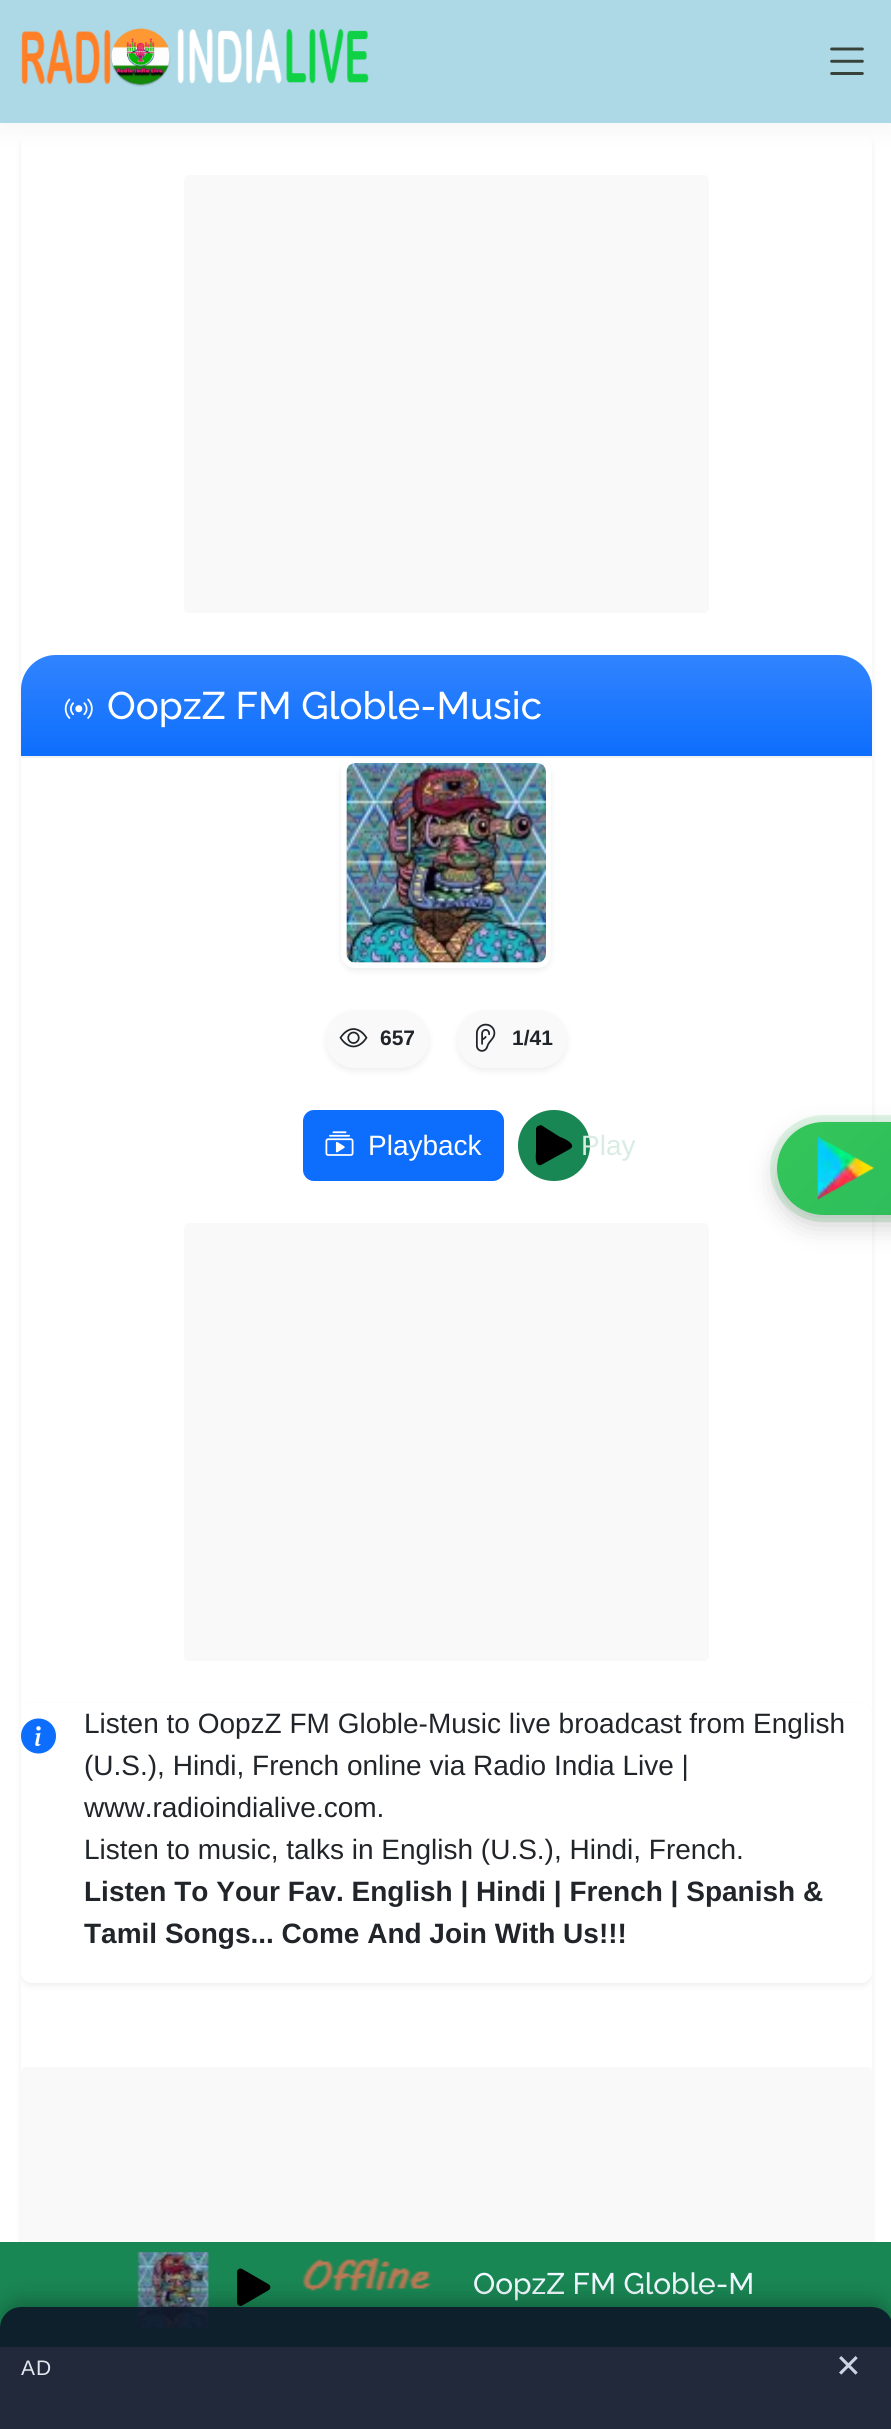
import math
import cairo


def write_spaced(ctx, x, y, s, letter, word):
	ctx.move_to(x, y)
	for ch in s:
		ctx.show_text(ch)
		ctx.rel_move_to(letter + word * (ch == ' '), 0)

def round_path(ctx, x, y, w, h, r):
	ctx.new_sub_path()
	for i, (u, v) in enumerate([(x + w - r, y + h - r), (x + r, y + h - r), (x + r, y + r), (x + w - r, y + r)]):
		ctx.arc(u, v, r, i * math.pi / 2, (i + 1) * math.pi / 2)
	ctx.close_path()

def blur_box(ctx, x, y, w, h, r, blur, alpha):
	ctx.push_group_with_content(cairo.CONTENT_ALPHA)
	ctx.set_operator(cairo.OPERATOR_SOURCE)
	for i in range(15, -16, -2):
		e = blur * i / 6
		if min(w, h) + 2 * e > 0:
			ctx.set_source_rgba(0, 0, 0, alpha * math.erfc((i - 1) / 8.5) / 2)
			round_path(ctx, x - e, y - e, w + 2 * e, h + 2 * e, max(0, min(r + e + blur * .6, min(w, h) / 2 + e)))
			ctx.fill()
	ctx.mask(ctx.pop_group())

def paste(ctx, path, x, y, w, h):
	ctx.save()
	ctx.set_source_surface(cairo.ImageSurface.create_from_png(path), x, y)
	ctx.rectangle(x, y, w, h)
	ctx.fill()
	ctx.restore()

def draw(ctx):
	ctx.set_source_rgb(1, 1, 1)
	ctx.paint()
	ctx.set_source_rgb(0, 0, 0)
	blur_box(ctx, 21, 137, 851, 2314, 11, 3.5, 0.07)
	ctx.set_source_rgb(1, 1, 1)
	round_path(ctx, 21, 133, 851, 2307, 11)
	ctx.fill()
	ctx.set_source_rgb(0.216, 0.259, 0.231)
	blur_box(ctx, 0, 0, 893, 123, 0, 16, 0.08)
	ctx.set_source_rgb(0.678, 0.847, 0.902)
	ctx.rectangle(0, 0, 891, 123)
	ctx.fill()
	paste(ctx, 'media/1.png', 21, 28, 348, 59)
	paste(ctx, 'media/2.png', 830, 47, 34, 28)
	ctx.set_source_rgb(0.973, 0.973, 0.973)
	round_path(ctx, 184, 175, 525, 438, 5)
	ctx.fill()
	ctx.set_source_rgb(0.051, 0.431, 0.992)
	ctx.new_path()
	ctx.move_to(56, 655)
	ctx.line_to(837, 655)
	ctx.curve_to(856.5, 655, 872, 670.5, 872, 690)
	ctx.line_to(872, 758)
	ctx.line_to(21, 758)
	ctx.line_to(21, 690)
	ctx.curve_to(21, 670.5, 36.5, 655, 56, 655)
	ctx.close_path()
	ctx.fill()
	gradient = cairo.LinearGradient(446, 655, 446, 756)
	gradient.add_color_stop_rgba(0, 1, 1, 1, 0.15)
	gradient.add_color_stop_rgba(1, 1, 1, 1, 0)
	ctx.set_source(gradient)
	ctx.new_path()
	ctx.move_to(56, 655)
	ctx.line_to(837, 655)
	ctx.curve_to(856.5, 655, 872, 670.5, 872, 690)
	ctx.line_to(872, 756)
	ctx.line_to(21, 756)
	ctx.line_to(21, 690)
	ctx.curve_to(21, 670.5, 36.5, 655, 56, 655)
	ctx.close_path()
	ctx.fill()
	ctx.set_source_rgb(0.945, 0.945, 0.945)
	ctx.rectangle(21, 756, 851, 2)
	ctx.fill()
	paste(ctx, 'media/3.png', 64, 698, 29, 21)
	ctx.select_font_face('Raleway Medium')
	ctx.set_font_size(38.4)
	ctx.set_source_rgb(1, 1, 1)
	ctx.move_to(107, 719)
	ctx.show_text('OopzZ FM Globle-Music')
	ctx.set_source_rgb(0, 0, 0)
	blur_box(ctx, 341, 761, 210, 210, 14, 3.5, 0.07)
	round_path(ctx, 343.5, 760.5, 205, 205, 11.5)
	ctx.set_source_rgb(1, 1, 1)
	ctx.set_line_width(5)
	ctx.stroke()
	paste(ctx, 'media/4.png', 346, 763, 200, 200)
	ctx.set_source_rgb(0, 0, 0)
	blur_box(ctx, 326, 1013, 103, 58, 29, 3.5, 0.07)
	ctx.set_source_rgb(0.973, 0.976, 0.98)
	round_path(ctx, 326, 1010, 103, 58, 29)
	ctx.fill()
	paste(ctx, 'media/5.png', 339, 1028, 29, 20)
	ctx.select_font_face('Liberation Sans', cairo.FONT_SLANT_NORMAL, cairo.FONT_WEIGHT_BOLD)
	ctx.set_font_size(21)
	ctx.set_source_rgb(0.129, 0.145, 0.161)
	ctx.move_to(380, 1045)
	ctx.show_text('657')
	ctx.set_source_rgb(0, 0, 0)
	blur_box(ctx, 457, 1013, 110, 58, 29, 3.5, 0.07)
	ctx.set_source_rgb(0.973, 0.976, 0.98)
	round_path(ctx, 457, 1010, 110, 58, 29)
	ctx.fill()
	paste(ctx, 'media/6.png', 475, 1023, 21, 29)
	ctx.set_source_rgb(0.129, 0.145, 0.161)
	ctx.move_to(512, 1045)
	ctx.show_text('1/41')
	ctx.set_source_rgb(0.051, 0.431, 0.992)
	round_path(ctx, 304, 1111, 199, 69, 10)
	ctx.fill_preserve()
	ctx.set_line_width(2)
	ctx.stroke()
	paste(ctx, 'media/7.png', 325, 1131, 29, 25)
	ctx.select_font_face('Liberation Sans')
	ctx.set_font_size(28)
	ctx.set_source_rgb(1, 1, 1)
	ctx.move_to(368, 1155)
	ctx.show_text('Playback')
	ctx.set_source_rgb(0.098, 0.529, 0.329)
	round_path(ctx, 518, 1110, 72, 71, 35.5)
	ctx.fill()
	ctx.set_source_rgb(0, 0, 0)
	ctx.new_path()
	ctx.move_to(570, 1149)
	ctx.line_to(541, 1165)
	ctx.curve_to(534, 1167, 536, 1154, 536, 1151)
	ctx.line_to(536, 1129)
	ctx.curve_to(536, 1128, 537, 1126, 538, 1126)
	ctx.line_to(541, 1125)
	ctx.line_to(560, 1137)
	ctx.curve_to(561, 1137, 578, 1144, 570, 1149)
	ctx.close_path()
	ctx.fill()
	ctx.set_source_rgb(0.851, 0.922, 0.89)
	ctx.move_to(581, 1155)
	ctx.show_text('Play')
	ctx.set_source_rgb(0.973, 0.973, 0.973)
	round_path(ctx, 184, 1223, 525, 438, 5)
	ctx.fill()
	ctx.save()
	round_path(ctx, 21, 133, 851, 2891, 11)
	ctx.clip()
	ctx.set_source_rgb(0, 0, 0)
	blur_box(ctx, 21, 1706, 851, 280, 11, 3.5, 0.07)
	ctx.restore()
	ctx.set_source_rgb(1, 1, 1)
	round_path(ctx, 21, 1703, 851, 280, 11)
	ctx.fill()
	paste(ctx, 'media/8.png', 21, 1718, 35, 36)
	ctx.set_source_rgb(0.129, 0.145, 0.161)
	for x, y, s in [
		(84, 1733, 'Listen to OopzZ FM Globle-Music live broadcast from English'),
		(84, 1775, '(U.S.), Hindi, French online via Radio India Live |'),
		(84, 1817, 'www.radioindialive.com.'),
		(84, 1859, 'Listen to music, talks in English (U.S.), Hindi, French.'),
	]:
		ctx.move_to(x, y)
		ctx.show_text(s)
	ctx.select_font_face('Liberation Sans', cairo.FONT_SLANT_NORMAL, cairo.FONT_WEIGHT_BOLD)
	ctx.move_to(84, 1901)
	ctx.show_text('Listen To Your Fav. English | Hindi | French | Spanish &')
	ctx.move_to(84, 1943)
	ctx.show_text('Tamil Songs... Come And Join With Us!!!')
	ctx.set_source_rgb(0.973, 0.973, 0.973)
	round_path(ctx, 21, 2067, 851, 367, 5)
	ctx.fill()
	round_path(ctx, 773.5, 1118.5, 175, 100, 50)
	ctx.set_source_rgba(0.204, 0.78, 0.349, 0.15)
	ctx.set_line_width(7)
	ctx.stroke()
	ctx.set_source_rgb(0, 0, 0)
	blur_box(ctx, 777, 1132, 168, 93, 46.5, 13, 0.2)
	gradient = cairo.LinearGradient(796, 1103, 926, 1233)
	gradient.add_color_stop_rgba(0, 0.204, 0.78, 0.349, 1)
	gradient.add_color_stop_rgba(1, 0.176, 0.733, 0.361, 1)
	ctx.set_source(gradient)
	round_path(ctx, 777, 1122, 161, 93, 46.5)
	ctx.fill()
	paste(ctx, 'media/9.png', 817, 1136, 57, 64)
	ctx.set_source_rgb(0.098, 0.529, 0.329)
	ctx.rectangle(0, 2242, 891, 105)
	ctx.fill()
	paste(ctx, 'media/10.png', 137, 2252, 72, 76)
	paste(ctx, 'media/11.png', 237, 2268, 34, 38)
	paste(ctx, 'media/12.png', 302, 2257, 130, 34)
	ctx.select_font_face('Raleway Medium')
	ctx.set_font_size(29.75)
	ctx.set_source_rgb(0.941, 0.973, 1)
	ctx.move_to(473, 2294)
	ctx.show_text('OopzZ FM Globle-M')
	ctx.save()
	ctx.set_fill_rule(cairo.FILL_RULE_EVEN_ODD)
	ctx.new_path()
	ctx.move_to(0, 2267)
	ctx.line_to(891, 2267)
	ctx.line_to(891, 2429)
	ctx.line_to(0, 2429)
	ctx.close_path()
	ctx.move_to(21, 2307)
	ctx.line_to(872, 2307)
	ctx.curve_to(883.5, 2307, 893, 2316.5, 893, 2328)
	ctx.line_to(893, 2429)
	ctx.line_to(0, 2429)
	ctx.line_to(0, 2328)
	ctx.curve_to(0, 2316.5, 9.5, 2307, 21, 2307)
	ctx.close_path()
	ctx.clip()
	ctx.set_source_rgb(0, 0, 0)
	blur_box(ctx, 0, 2300, 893, 122, 21, 10.5, 0.25)
	ctx.restore()
	ctx.set_source_rgba(0.059, 0.09, 0.165, 0.92)
	ctx.new_path()
	ctx.move_to(21, 2307)
	ctx.line_to(872, 2307)
	ctx.curve_to(883.5, 2307, 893, 2316.5, 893, 2328)
	ctx.line_to(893, 2429)
	ctx.line_to(0, 2429)
	ctx.line_to(0, 2328)
	ctx.curve_to(0, 2316.5, 9.5, 2307, 21, 2307)
	ctx.close_path()
	ctx.fill()
	ctx.select_font_face('Liberation Sans')
	ctx.set_font_size(21)
	ctx.set_source_rgb(0.886, 0.91, 0.941)
	write_spaced(ctx, 21, 2375, 'AD', 1, 0)
	ctx.select_font_face('DejaVu Sans')
	ctx.set_font_size(32)
	ctx.set_source_rgb(0.796, 0.835, 0.882)
	ctx.move_to(835, 2377)
	ctx.show_text('✕')


surface = cairo.ImageSurface(cairo.FORMAT_RGB24, 891, 2429)
ctx = cairo.Context(surface)
options = cairo.FontOptions()
options.set_hint_metrics(cairo.HINT_METRICS_OFF)
options.set_hint_style(cairo.HINT_STYLE_NONE)
ctx.set_font_options(options)
ctx.set_miter_limit(4)
draw(ctx)
surface.write_to_png('image.png')
